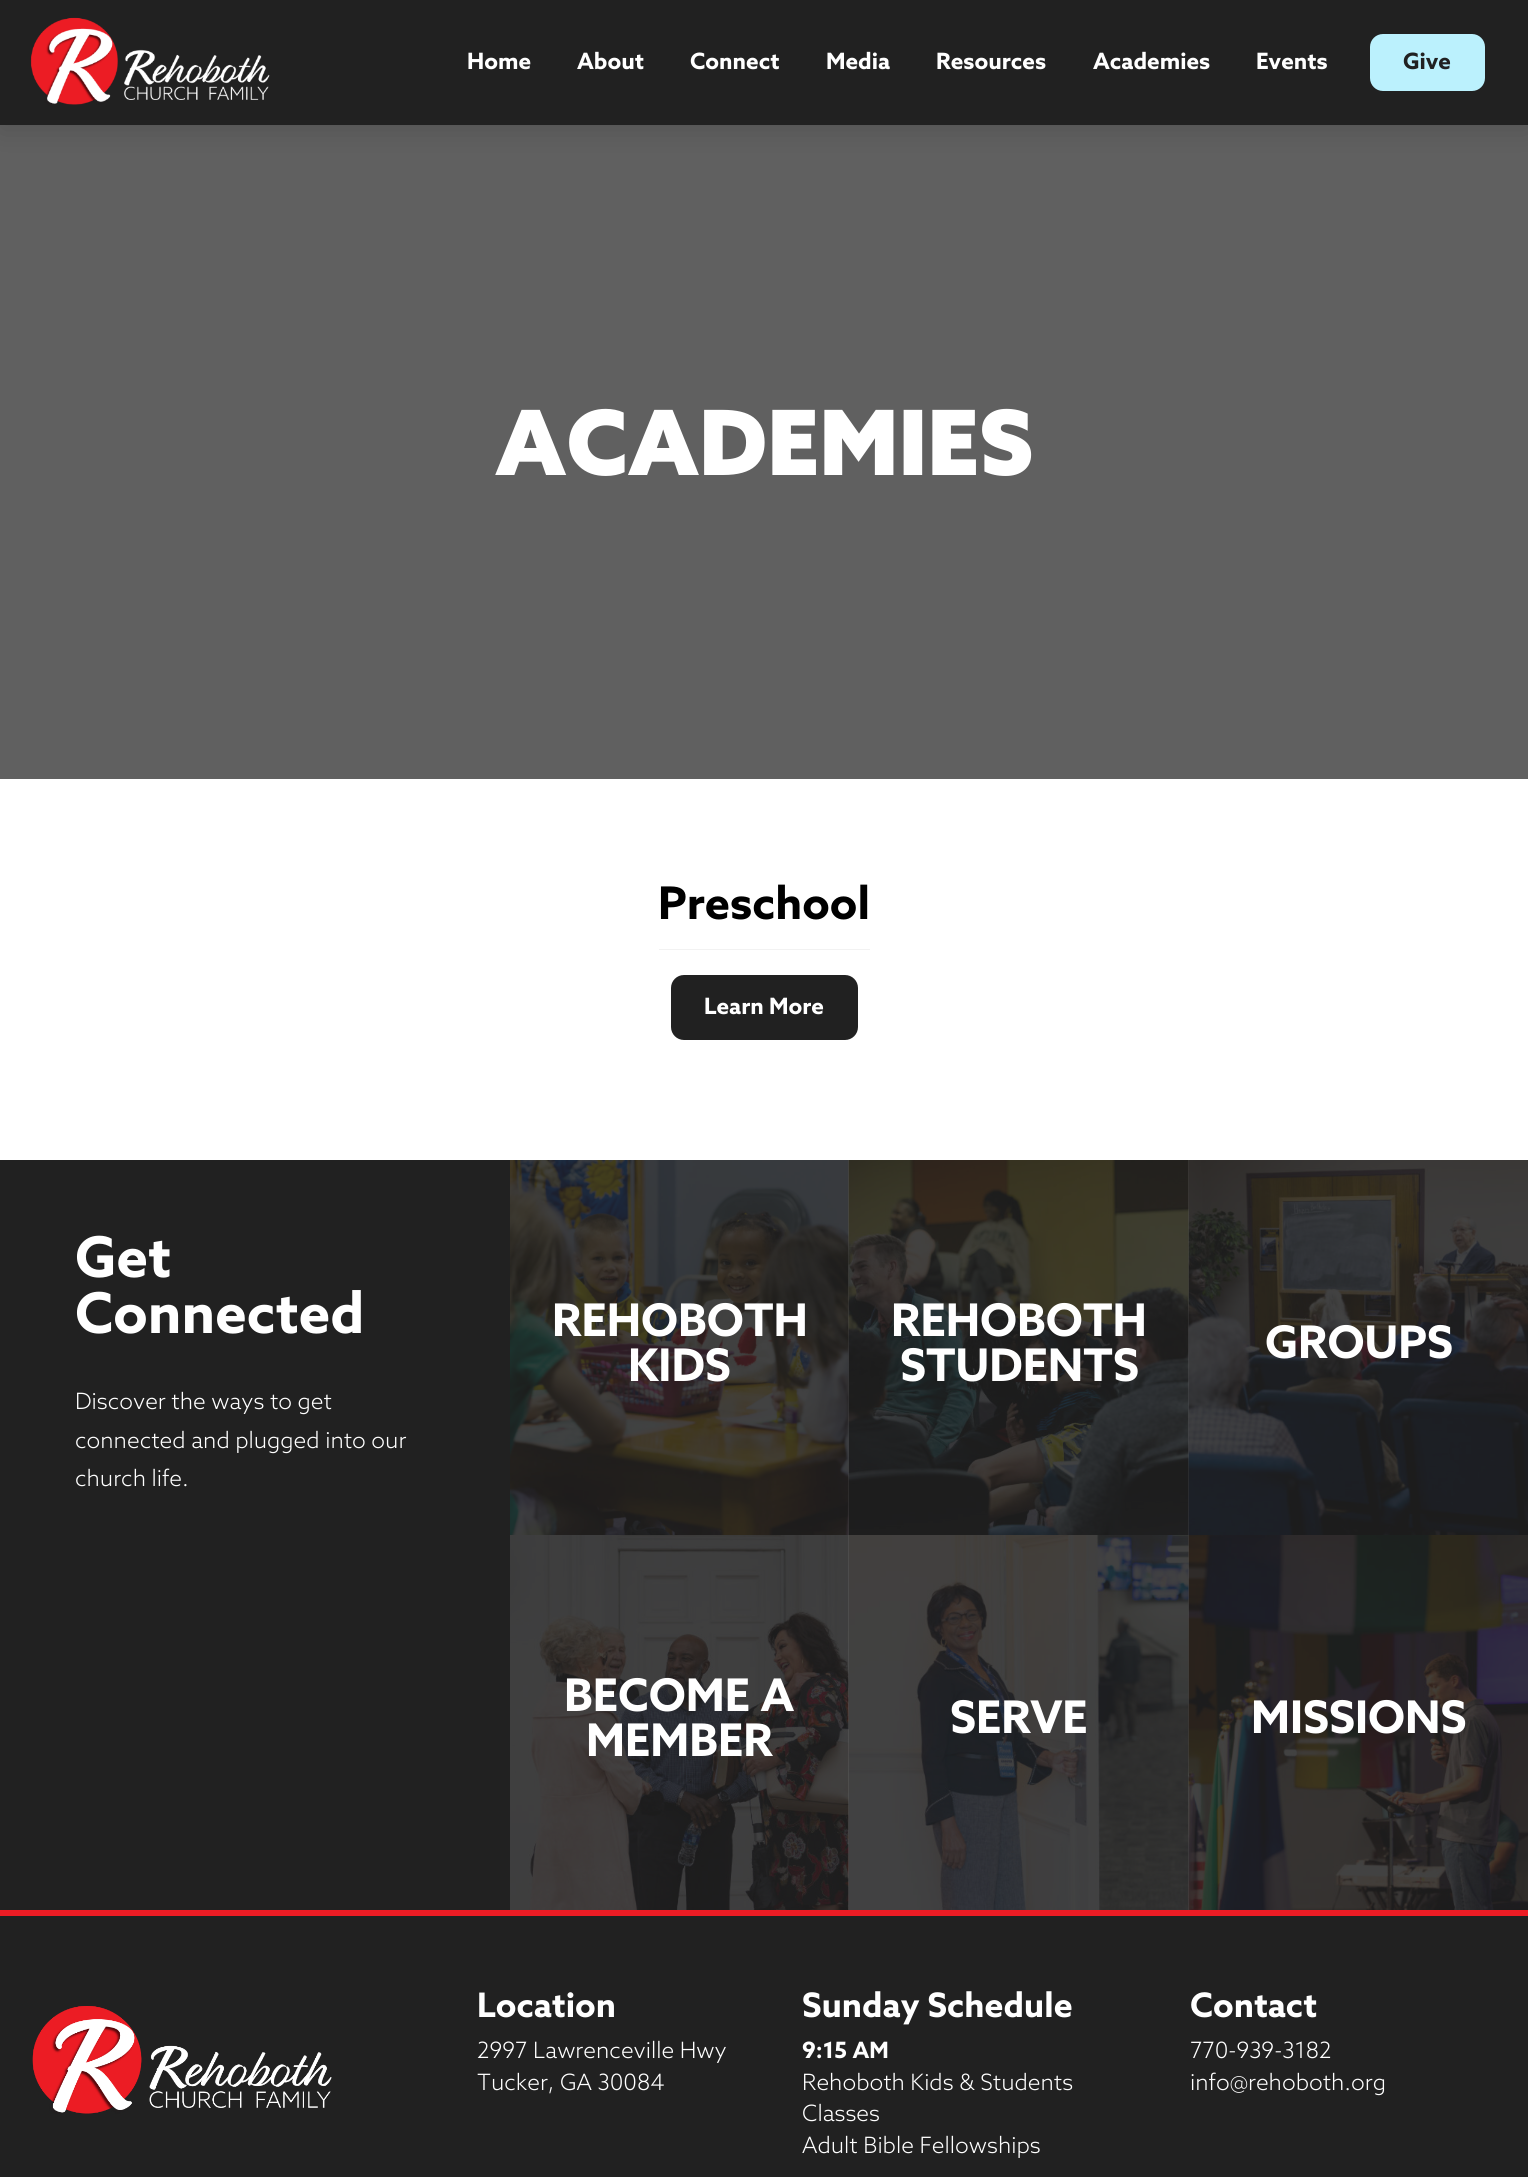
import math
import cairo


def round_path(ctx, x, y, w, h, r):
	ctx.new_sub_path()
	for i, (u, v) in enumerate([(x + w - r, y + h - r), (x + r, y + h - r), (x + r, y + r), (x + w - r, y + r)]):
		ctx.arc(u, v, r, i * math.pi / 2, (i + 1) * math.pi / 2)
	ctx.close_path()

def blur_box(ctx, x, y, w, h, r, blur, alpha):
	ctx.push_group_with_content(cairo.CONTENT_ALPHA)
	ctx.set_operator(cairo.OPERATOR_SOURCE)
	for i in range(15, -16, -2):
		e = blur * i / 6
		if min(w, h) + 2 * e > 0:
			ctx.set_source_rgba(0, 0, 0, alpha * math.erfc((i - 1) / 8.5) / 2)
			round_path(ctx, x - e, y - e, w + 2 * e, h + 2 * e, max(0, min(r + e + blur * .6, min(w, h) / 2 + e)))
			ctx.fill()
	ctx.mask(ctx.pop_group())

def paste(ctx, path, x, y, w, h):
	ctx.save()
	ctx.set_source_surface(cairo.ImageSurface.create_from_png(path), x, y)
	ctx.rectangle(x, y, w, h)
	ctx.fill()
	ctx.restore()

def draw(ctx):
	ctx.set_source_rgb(1, 1, 1)
	ctx.paint()
	ctx.set_source_rgb(0.259, 0.259, 0.259)
	ctx.rectangle(1188, 1160, 1, 750)
	ctx.rectangle(848, 1160, 1, 750)
	ctx.fill()
	ctx.set_source_rgb(0.376, 0.376, 0.376)
	ctx.rectangle(0, 125, 1528, 654)
	ctx.fill()
	ctx.set_source_rgb(0, 0, 0)
	blur_box(ctx, 0, 4, 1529, 125, 0, 15.5, 0.15)
	ctx.set_source_rgb(0.129, 0.129, 0.129)
	ctx.rectangle(0, 0, 1528, 125)
	ctx.fill()
	paste(ctx, 'media/1.png', 30, 17, 240, 88)
	ctx.select_font_face('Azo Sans', cairo.FONT_SLANT_NORMAL, cairo.FONT_WEIGHT_BOLD)
	ctx.set_font_size(22.5)
	ctx.set_source_rgb(1, 1, 1)
	for x, y, s in [
		(467, 69, 'Home'),
		(577, 69, 'About'),
		(690, 69, 'Connect'),
		(826, 69, 'Media'),
		(936, 69, 'Resources'),
		(1093, 69, 'Academies'),
		(1256, 69, 'Events'),
	]:
		ctx.move_to(x, y)
		ctx.show_text(s)
	ctx.set_source_rgb(0.733, 0.945, 0.992)
	round_path(ctx, 1371.5, 35.5, 112, 54, 11.5)
	ctx.fill_preserve()
	ctx.set_line_width(3)
	ctx.stroke()
	ctx.set_source_rgb(0.129, 0.129, 0.129)
	ctx.move_to(1403, 69)
	ctx.show_text('Give')
	ctx.select_font_face('Azo Sans Black')
	ctx.set_font_size(90)
	ctx.set_source_rgb(1, 1, 1)
	ctx.move_to(495, 475)
	ctx.show_text('ACADEMIES')
	ctx.select_font_face('Azo Sans', cairo.FONT_SLANT_NORMAL, cairo.FONT_WEIGHT_BOLD)
	ctx.set_font_size(45)
	ctx.set_source_rgb(0, 0, 0)
	ctx.move_to(658, 919)
	ctx.show_text('Preschool')
	ctx.set_source_rgb(0.949, 0.949, 0.949)
	ctx.rectangle(659, 949, 211, 1)
	ctx.fill()
	ctx.set_source_rgb(0.129, 0.129, 0.129)
	round_path(ctx, 672.5, 976.5, 184, 62, 11.5)
	ctx.fill_preserve()
	ctx.stroke()
	ctx.set_font_size(22.5)
	ctx.set_source_rgb(1, 1, 1)
	ctx.move_to(704, 1014)
	ctx.show_text('Learn More')
	ctx.set_source_rgb(0.129, 0.129, 0.129)
	ctx.rectangle(0, 1160, 510, 750)
	ctx.fill()
	ctx.set_font_size(56.25)
	ctx.set_source_rgb(1, 1, 1)
	ctx.move_to(75, 1277)
	ctx.show_text('Get')
	ctx.move_to(75, 1333)
	ctx.show_text('Connected')
	ctx.select_font_face('Azo Sans Light')
	ctx.set_font_size(22.5)
	for x, y, s in [
		(75, 1409, 'Discover the ways to get'),
		(75, 1448, 'connected and plugged into our'),
		(75, 1486, 'church life.'),
	]:
		ctx.move_to(x, y)
		ctx.show_text(s)
	paste(ctx, 'media/2.png', 510, 1160, 339, 375)
	ctx.select_font_face('Azo Sans', cairo.FONT_SLANT_NORMAL, cairo.FONT_WEIGHT_BOLD)
	ctx.set_font_size(45)
	ctx.move_to(552, 1336)
	ctx.show_text('REHOBOTH')
	ctx.move_to(628, 1381)
	ctx.show_text('KIDS')
	paste(ctx, 'media/3.png', 848, 1160, 341, 375)
	ctx.move_to(891, 1336)
	ctx.show_text('REHOBOTH')
	ctx.move_to(900, 1381)
	ctx.show_text('STUDENTS')
	paste(ctx, 'media/4.png', 1188, 1160, 340, 375)
	ctx.move_to(1265, 1358)
	ctx.show_text('GROUPS')
	paste(ctx, 'media/5.png', 510, 1535, 339, 375)
	ctx.move_to(564, 1711)
	ctx.show_text('BECOME A')
	ctx.move_to(586, 1756)
	ctx.show_text('MEMBER')
	paste(ctx, 'media/6.png', 848, 1535, 341, 375)
	ctx.move_to(950, 1733)
	ctx.show_text('SERVE')
	paste(ctx, 'media/7.png', 1188, 1535, 340, 375)
	ctx.move_to(1251, 1733)
	ctx.show_text('MISSIONS')
	ctx.set_source_rgb(0.129, 0.129, 0.129)
	ctx.rectangle(0, 1916, 1528, 261)
	ctx.fill()
	ctx.set_source_rgb(0.925, 0.11, 0.141)
	ctx.rectangle(0, 1910, 1528, 6)
	ctx.fill()
	paste(ctx, 'media/8.png', 32, 2006, 300, 108)
	ctx.set_font_size(33.75)
	ctx.set_source_rgb(1, 1, 1)
	ctx.move_to(477, 2017)
	ctx.show_text('Location')
	ctx.select_font_face('Azo Sans Light')
	ctx.set_font_size(22.5)
	ctx.move_to(477, 2058)
	ctx.show_text('2997 Lawrenceville Hwy')
	ctx.move_to(477, 2090)
	ctx.show_text('Tucker, GA 30084')
	ctx.select_font_face('Azo Sans', cairo.FONT_SLANT_NORMAL, cairo.FONT_WEIGHT_BOLD)
	ctx.set_font_size(33.75)
	ctx.move_to(802, 2017)
	ctx.show_text('Sunday Schedule')
	ctx.set_font_size(22.5)
	ctx.move_to(802, 2058)
	ctx.show_text('9:15 AM')
	ctx.select_font_face('Azo Sans Light')
	for x, y, s in [
		(802, 2090, 'Rehoboth Kids & Students'),
		(802, 2121, 'Classes'),
		(802, 2153, 'Adult Bible Fellowships'),
	]:
		ctx.move_to(x, y)
		ctx.show_text(s)
	ctx.select_font_face('Azo Sans', cairo.FONT_SLANT_NORMAL, cairo.FONT_WEIGHT_BOLD)
	ctx.set_font_size(33.75)
	ctx.move_to(1190, 2017)
	ctx.show_text('Contact')
	ctx.select_font_face('Azo Sans Light')
	ctx.set_font_size(22.5)
	ctx.move_to(1190, 2058)
	ctx.show_text('770-939-3182')
	ctx.move_to(1190, 2090)
	ctx.show_text('info@rehoboth.org')


surface = cairo.ImageSurface(cairo.FORMAT_RGB24, 1528, 2177)
ctx = cairo.Context(surface)
options = cairo.FontOptions()
options.set_hint_metrics(cairo.HINT_METRICS_OFF)
options.set_hint_style(cairo.HINT_STYLE_NONE)
ctx.set_font_options(options)
ctx.set_miter_limit(4)
draw(ctx)
surface.write_to_png('image.png')
